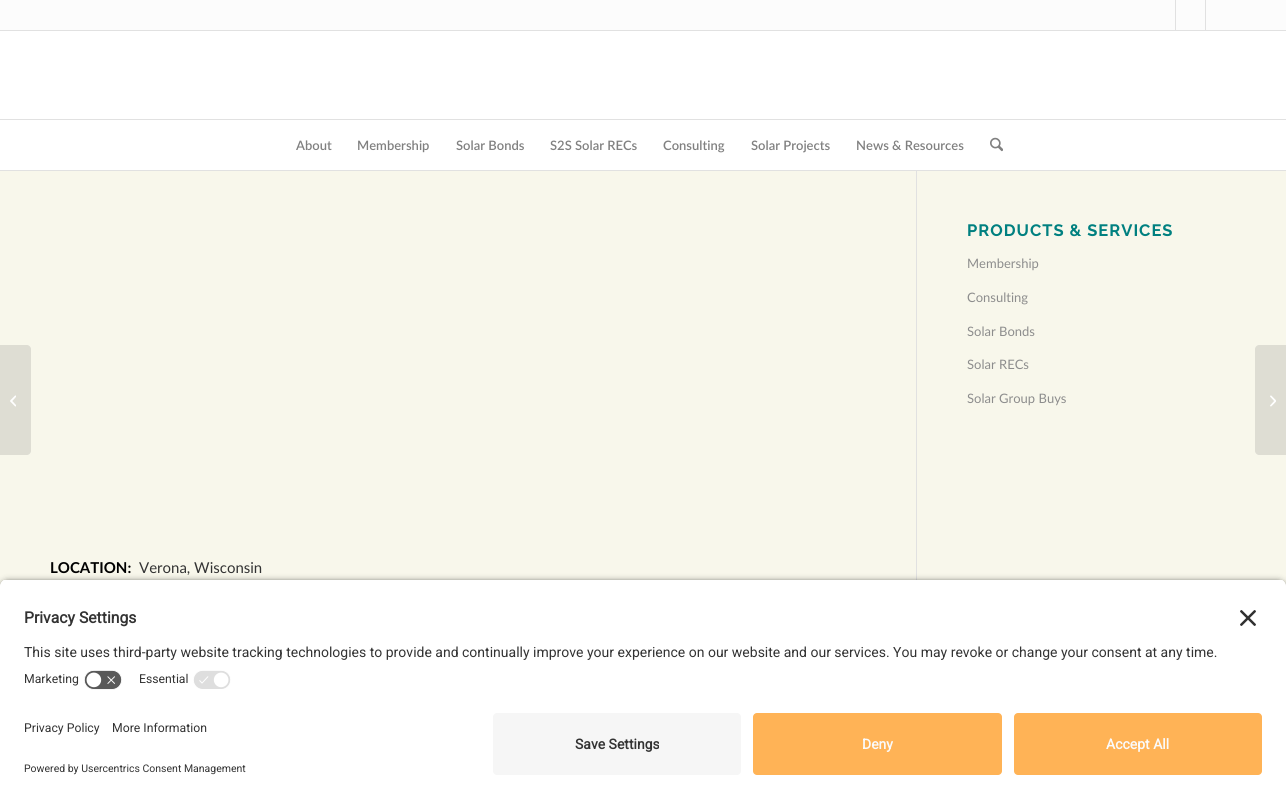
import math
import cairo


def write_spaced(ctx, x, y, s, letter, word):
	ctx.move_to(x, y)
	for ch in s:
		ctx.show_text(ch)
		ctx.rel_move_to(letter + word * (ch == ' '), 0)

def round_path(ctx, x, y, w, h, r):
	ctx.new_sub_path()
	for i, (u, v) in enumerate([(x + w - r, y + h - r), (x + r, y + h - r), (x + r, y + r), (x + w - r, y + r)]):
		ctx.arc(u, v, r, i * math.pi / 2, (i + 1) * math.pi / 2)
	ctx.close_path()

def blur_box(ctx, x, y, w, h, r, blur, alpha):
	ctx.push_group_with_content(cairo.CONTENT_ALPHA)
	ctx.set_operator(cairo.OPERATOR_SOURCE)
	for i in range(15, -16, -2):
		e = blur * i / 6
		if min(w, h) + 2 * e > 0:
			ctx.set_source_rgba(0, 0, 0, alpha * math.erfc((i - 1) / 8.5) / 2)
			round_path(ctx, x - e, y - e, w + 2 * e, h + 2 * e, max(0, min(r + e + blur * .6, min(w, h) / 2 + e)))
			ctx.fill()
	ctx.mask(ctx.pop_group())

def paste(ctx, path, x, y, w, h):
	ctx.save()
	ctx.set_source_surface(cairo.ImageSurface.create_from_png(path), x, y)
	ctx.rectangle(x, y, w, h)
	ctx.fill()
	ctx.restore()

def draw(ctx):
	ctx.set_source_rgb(1, 1, 1)
	ctx.paint()
	ctx.set_source_rgb(0.988, 0.988, 0.988)
	ctx.rectangle(0, 0, 1286, 30)
	ctx.fill()
	ctx.set_source_rgb(0.882, 0.882, 0.882)
	ctx.rectangle(0, 30, 1286, 1)
	ctx.rectangle(1175, 0, 1, 30)
	ctx.rectangle(1205, 0, 1, 30)
	ctx.rectangle(0, 170, 1286, 1)
	ctx.rectangle(0, 119, 1286, 1)
	ctx.fill()
	ctx.select_font_face('Lato SemiBold')
	ctx.set_font_size(13)
	ctx.set_source_rgb(0.502, 0.502, 0.502)
	for x, y, s in [
		(296, 150, 'About'),
		(357, 150, 'Membership'),
		(456, 150, 'Solar Bonds'),
		(550, 150, 'S2S Solar RECs'),
		(663, 150, 'Consulting'),
		(751, 150, 'Solar Projects'),
		(856, 150, 'News & Resources'),
	]:
		ctx.move_to(x, y)
		ctx.show_text(s)
	paste(ctx, 'media/1.png', 990, 137, 13, 15)
	ctx.set_source_rgb(0.969, 0.965, 0.918)
	ctx.rectangle(0, 171, 1286, 416)
	ctx.fill()
	ctx.set_source_rgb(0.871, 0.867, 0.827)
	ctx.new_path()
	ctx.move_to(0, 345)
	ctx.line_to(27, 345)
	ctx.curve_to(29, 345, 31, 347, 31, 349)
	ctx.line_to(31, 451)
	ctx.curve_to(31, 453, 29, 455, 27, 455)
	ctx.line_to(0, 455)
	ctx.close_path()
	ctx.fill()
	paste(ctx, 'media/2.png', 10, 395, 6, 12)
	ctx.select_font_face('Raleway Thin')
	ctx.set_font_size(16.5)
	ctx.set_source_rgb(0, 0.502, 0.502)
	write_spaced(ctx, 967, 236, 'PRODUCTS & SERVICES', 1, 0)
	ctx.select_font_face('Lato')
	ctx.set_font_size(13)
	ctx.set_source_rgb(0.553, 0.553, 0.553)
	for x, y, s in [
		(967, 268, 'Membership'),
		(967, 302, 'Consulting'),
		(967, 336, 'Solar Bonds'),
		(967, 369, 'Solar RECs'),
		(967, 403, 'Solar Group Buys'),
	]:
		ctx.move_to(x, y)
		ctx.show_text(s)
	ctx.set_source_rgb(0.882, 0.882, 0.882)
	ctx.rectangle(916, 171, 1, 409)
	ctx.fill()
	ctx.select_font_face('Lato', cairo.FONT_SLANT_NORMAL, cairo.FONT_WEIGHT_BOLD)
	ctx.set_font_size(15)
	ctx.set_source_rgb(0, 0, 0)
	ctx.move_to(50, 573)
	ctx.show_text('LOCATION:')
	ctx.select_font_face('Lato')
	ctx.set_source_rgb(0.2, 0.2, 0.2)
	ctx.move_to(139, 573)
	ctx.show_text('Verona, Wisconsin')
	ctx.set_source_rgb(0.871, 0.867, 0.827)
	ctx.new_path()
	ctx.move_to(1259, 345)
	ctx.line_to(1286, 345)
	ctx.line_to(1286, 455)
	ctx.line_to(1259, 455)
	ctx.curve_to(1257, 455, 1255, 453, 1255, 451)
	ctx.line_to(1255, 349)
	ctx.curve_to(1255, 347, 1257, 345, 1259, 345)
	ctx.close_path()
	ctx.fill()
	paste(ctx, 'media/3.png', 1270, 395, 6, 12)
	ctx.set_source_rgb(0, 0, 0)
	blur_box(ctx, 0, 582, 1286, 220, 8, 3.5, 0.8)
	ctx.save()
	ctx.new_path()
	ctx.move_to(8, 579)
	ctx.line_to(1278, 579)
	ctx.curve_to(1282.5, 579, 1286, 582.5, 1286, 587)
	ctx.line_to(1286, 705)
	ctx.line_to(0, 705)
	ctx.line_to(0, 587)
	ctx.curve_to(0, 582.5, 3.5, 579, 8, 579)
	ctx.close_path()
	ctx.clip()
	ctx.set_source_rgb(1, 1, 1)
	ctx.rectangle(0, 580, 1286, 125)
	ctx.fill()
	ctx.rectangle(0, 580, 1286, 85)
	ctx.fill()
	ctx.restore()
	ctx.select_font_face('Roboto', cairo.FONT_SLANT_NORMAL, cairo.FONT_WEIGHT_BOLD)
	ctx.set_font_size(15.75)
	ctx.set_source_rgb(0.2, 0.2, 0.2)
	ctx.move_to(24, 623)
	ctx.show_text('Privacy Settings')
	paste(ctx, 'media/4.png', 1240, 610, 16, 16)
	ctx.select_font_face('Roboto')
	ctx.set_font_size(14)
	ctx.move_to(24, 657)
	ctx.show_text('This site uses third-party website tracking technologies to provide and continually improve your experience on our website and our services. You may revoke or change your consent at any time.')
	ctx.set_font_size(12.25)
	ctx.move_to(24, 683)
	ctx.show_text('Marketing')
	paste(ctx, 'media/5.png', 84, 670, 38, 20)
	ctx.move_to(139, 683)
	ctx.show_text('Essential')
	paste(ctx, 'media/6.png', 193, 670, 38, 19)
	ctx.set_source_rgb(1, 1, 1)
	ctx.rectangle(0, 705, 1286, 94)
	ctx.fill()
	ctx.set_source_rgb(0.2, 0.2, 0.2)
	ctx.move_to(24, 732)
	ctx.show_text('Privacy Policy')
	ctx.move_to(112, 732)
	ctx.show_text('More Information')
	ctx.set_font_size(10.5)
	ctx.move_to(24, 772)
	ctx.show_text('Powered by Usercentrics Consent Management')
	ctx.set_source_rgb(0.961, 0.961, 0.961)
	round_path(ctx, 493, 713, 248, 62, 4)
	ctx.fill()
	ctx.select_font_face('Roboto', cairo.FONT_SLANT_NORMAL, cairo.FONT_WEIGHT_BOLD)
	ctx.set_font_size(14)
	ctx.set_source_rgb(0.2, 0.2, 0.2)
	ctx.move_to(575, 749)
	ctx.show_text('Save Settings')
	ctx.set_source_rgb(1, 0.702, 0.337)
	round_path(ctx, 753, 713, 249, 62, 4)
	ctx.fill()
	ctx.set_source_rgb(0.98, 0.98, 0.98)
	ctx.move_to(862, 749)
	ctx.show_text('Deny')
	ctx.set_source_rgb(1, 0.702, 0.337)
	round_path(ctx, 1014, 713, 248, 62, 4)
	ctx.fill()
	ctx.set_source_rgb(0.98, 0.98, 0.98)
	ctx.move_to(1106, 749)
	ctx.show_text('Accept All')


surface = cairo.ImageSurface(cairo.FORMAT_RGB24, 1286, 799)
ctx = cairo.Context(surface)
options = cairo.FontOptions()
options.set_hint_metrics(cairo.HINT_METRICS_OFF)
options.set_hint_style(cairo.HINT_STYLE_NONE)
ctx.set_font_options(options)
ctx.set_miter_limit(4)
draw(ctx)
surface.write_to_png('image.png')
